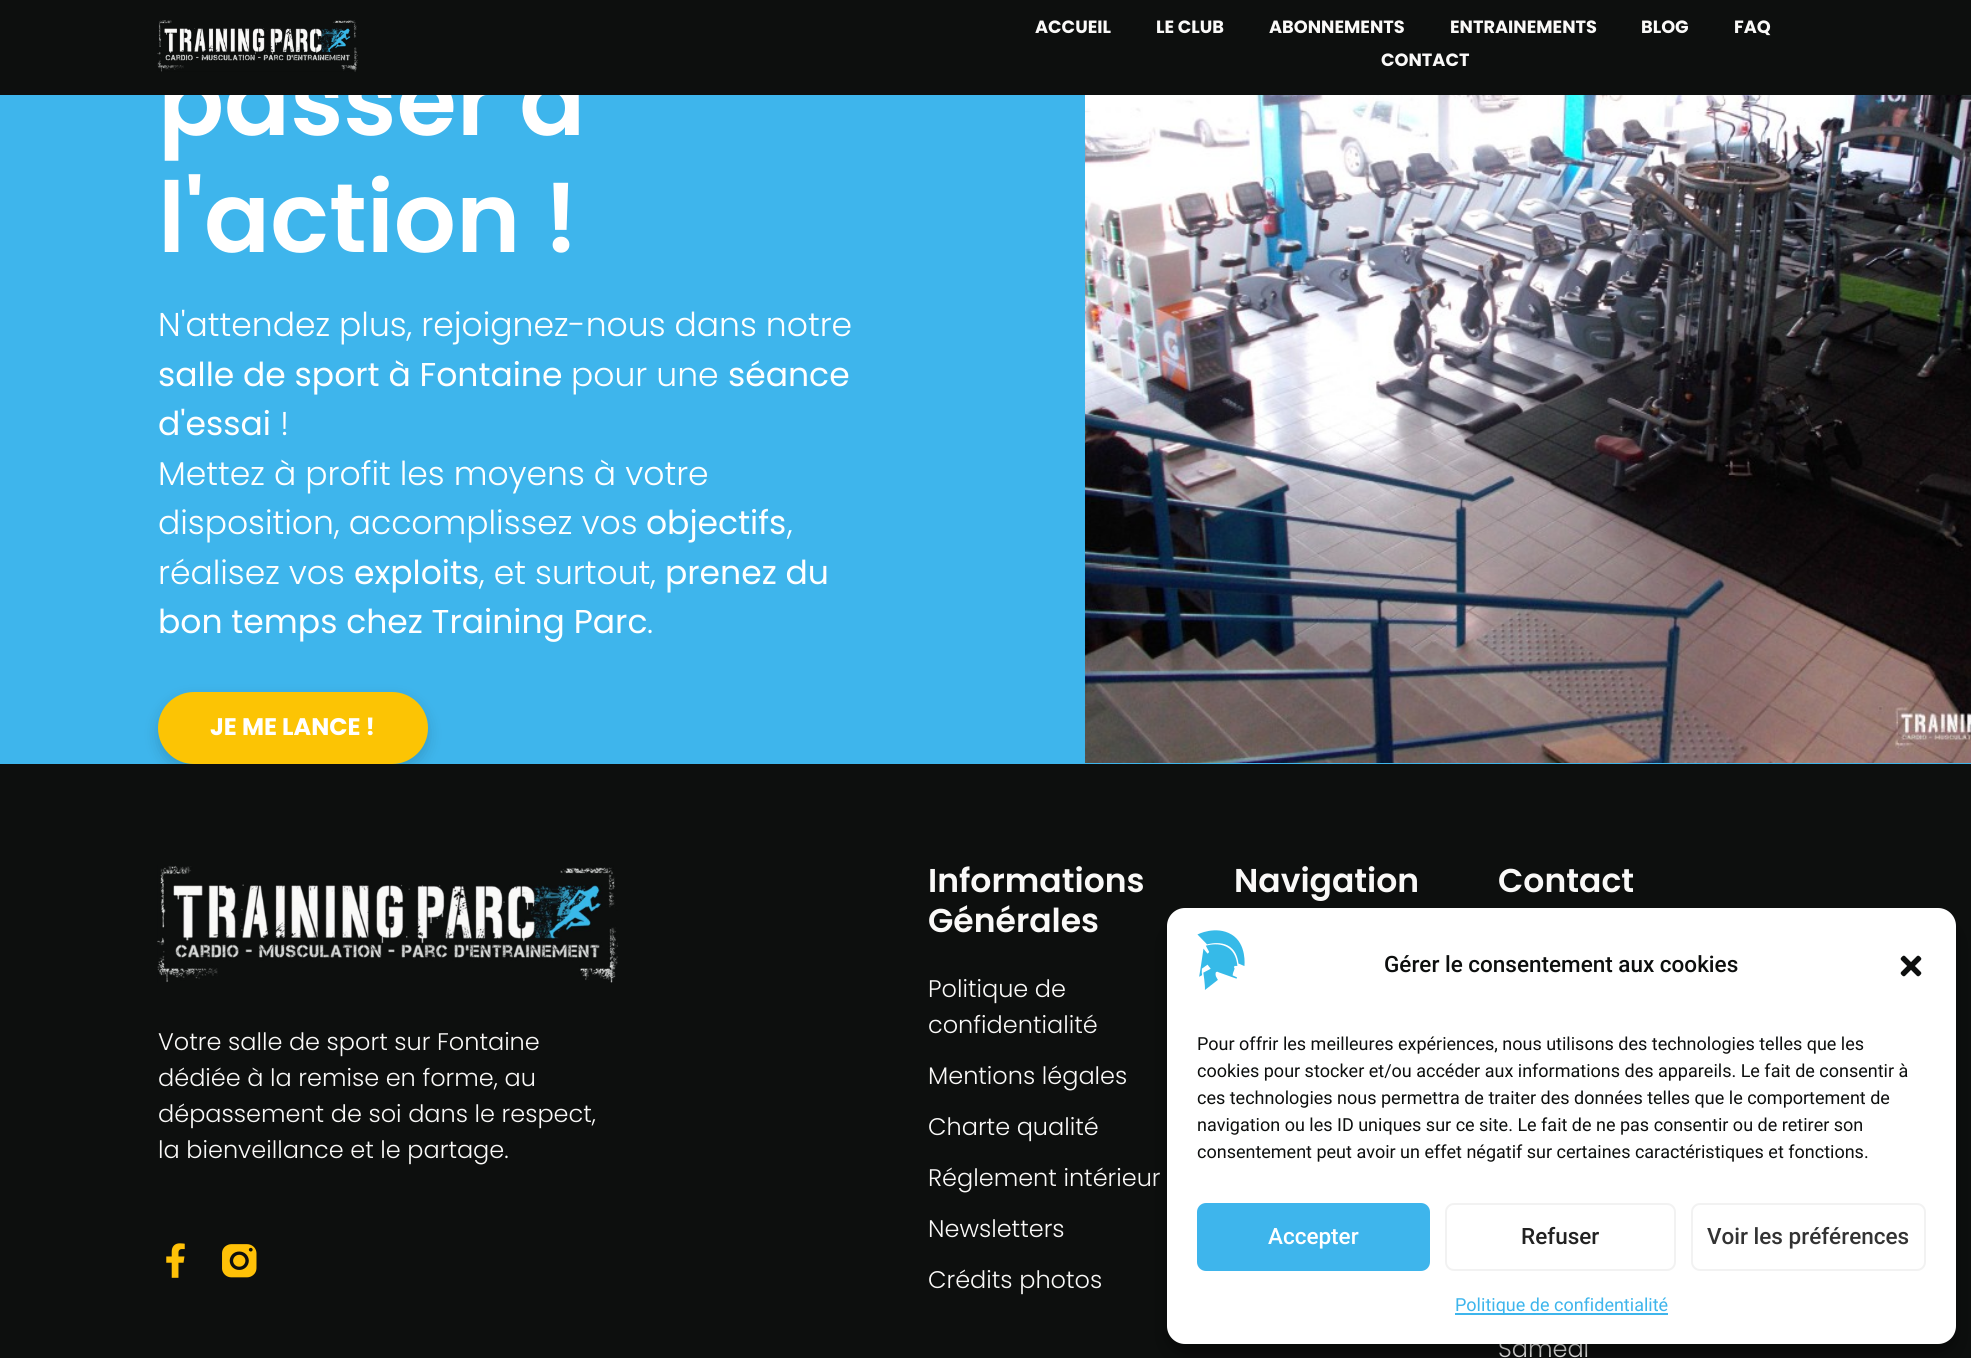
import math
import cairo


def round_path(ctx, x, y, w, h, r):
	ctx.new_sub_path()
	for i, (u, v) in enumerate([(x + w - r, y + h - r), (x + r, y + h - r), (x + r, y + r), (x + w - r, y + r)]):
		ctx.arc(u, v, r, i * math.pi / 2, (i + 1) * math.pi / 2)
	ctx.close_path()

def blur_box(ctx, x, y, w, h, r, blur, alpha):
	ctx.push_group_with_content(cairo.CONTENT_ALPHA)
	ctx.set_operator(cairo.OPERATOR_SOURCE)
	for i in range(15, -16, -2):
		e = blur * i / 6
		if min(w, h) + 2 * e > 0:
			ctx.set_source_rgba(0, 0, 0, alpha * math.erfc((i - 1) / 8.5) / 2)
			round_path(ctx, x - e, y - e, w + 2 * e, h + 2 * e, max(0, min(r + e + blur * .6, min(w, h) / 2 + e)))
			ctx.fill()
	ctx.mask(ctx.pop_group())

def paste(ctx, path, x, y, w, h):
	ctx.save()
	ctx.set_source_surface(cairo.ImageSurface.create_from_png(path), x, y)
	ctx.rectangle(x, y, w, h)
	ctx.fill()
	ctx.restore()

def draw(ctx):
	ctx.set_source_rgb(0.243, 0.71, 0.925)
	ctx.paint()
	ctx.select_font_face('Poppins SemiBold')
	ctx.set_font_size(97.5)
	ctx.set_source_rgb(1, 1, 1)
	ctx.move_to(158, 135)
	ctx.show_text('passer à')
	ctx.set_source_rgb(0.051, 0.059, 0.055)
	ctx.rectangle(0, 0, 1971, 95)
	ctx.fill()
	paste(ctx, 'media/1.png', 157, 20, 201, 52)
	ctx.select_font_face('Poppins', cairo.FONT_SLANT_NORMAL, cairo.FONT_WEIGHT_BOLD)
	ctx.set_font_size(17.75)
	ctx.set_source_rgb(0.98, 0.976, 0.969)
	for x, y, s in [
		(1035, 33, 'ACCUEIL'),
		(1156, 33, 'LE CLUB'),
		(1269, 33, 'ABONNEMENTS'),
		(1450, 33, 'ENTRAINEMENTS'),
		(1641, 33, 'BLOG'),
		(1734, 33, 'FAQ'),
		(1381, 66, 'CONTACT'),
	]:
		ctx.move_to(x, y)
		ctx.show_text(s)
	ctx.select_font_face('Poppins SemiBold')
	ctx.set_font_size(97.5)
	ctx.set_source_rgb(1, 1, 1)
	ctx.move_to(158, 252)
	ctx.show_text('l\'action !')
	ctx.select_font_face('Poppins Light')
	ctx.set_font_size(33)
	ctx.move_to(158, 336)
	ctx.show_text('N\'attendez plus, rejoignez-nous dans notre')
	ctx.select_font_face('Poppins')
	ctx.move_to(158, 386)
	ctx.show_text('salle de sport à Fontaine')
	ctx.select_font_face('Poppins Light')
	ctx.move_to(571, 386)
	ctx.show_text('pour une')
	ctx.select_font_face('Poppins')
	ctx.move_to(728, 386)
	ctx.show_text('séance')
	ctx.move_to(158, 435)
	ctx.show_text('d\'essai')
	ctx.select_font_face('Poppins Light')
	for x, y, s in [
		(280, 435, '!'),
		(158, 485, 'Mettez à profit les moyens à votre'),
		(158, 534, 'disposition, accomplissez vos'),
	]:
		ctx.move_to(x, y)
		ctx.show_text(s)
	ctx.select_font_face('Poppins')
	ctx.move_to(646, 534)
	ctx.show_text('objectifs')
	ctx.select_font_face('Poppins Light')
	ctx.move_to(787, 534)
	ctx.show_text(',')
	ctx.move_to(158, 584)
	ctx.show_text('réalisez vos')
	ctx.select_font_face('Poppins')
	ctx.move_to(354, 584)
	ctx.show_text('exploits')
	ctx.select_font_face('Poppins Light')
	ctx.move_to(479, 584)
	ctx.show_text(', et surtout,')
	ctx.select_font_face('Poppins')
	ctx.move_to(665, 584)
	ctx.show_text('prenez du')
	ctx.move_to(158, 633)
	ctx.show_text('bon temps chez Training Parc')
	ctx.select_font_face('Poppins Light')
	ctx.move_to(647, 633)
	ctx.show_text('.')
	ctx.set_source_rgb(0.051, 0.059, 0.055)
	ctx.rectangle(0, 764, 1971, 594)
	ctx.fill()
	ctx.save()
	ctx.rectangle(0, 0, 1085, 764)
	ctx.clip()
	ctx.set_source_rgb(0, 0, 0)
	blur_box(ctx, 158, 698, 270, 72, 36, 7.5, 0.15)
	ctx.restore()
	ctx.set_source_rgb(0.988, 0.769, 0.016)
	round_path(ctx, 158, 692, 270, 72, 36)
	ctx.fill()
	ctx.select_font_face('Poppins', cairo.FONT_SLANT_NORMAL, cairo.FONT_WEIGHT_BOLD)
	ctx.set_font_size(24)
	ctx.set_source_rgb(1, 1, 1)
	ctx.move_to(210, 735)
	ctx.show_text('JE ME LANCE !')
	paste(ctx, 'media/2.png', 1085, 95, 886, 668)
	paste(ctx, 'media/3.png', 157, 865, 461, 118)
	ctx.select_font_face('Poppins Light')
	ctx.set_source_rgb(0.98, 0.976, 0.969)
	for x, y, s in [
		(158, 1050, 'Votre salle de sport sur Fontaine'),
		(158, 1086, 'dédiée à la remise en forme, au'),
		(158, 1122, 'dépassement de soi dans le respect,'),
		(158, 1158, 'la bienveillance et le partage.'),
	]:
		ctx.move_to(x, y)
		ctx.show_text(s)
	paste(ctx, 'media/4.png', 166, 1243, 19, 35)
	paste(ctx, 'media/5.png', 222, 1244, 35, 34)
	ctx.select_font_face('Poppins SemiBold')
	ctx.set_font_size(33)
	ctx.move_to(928, 892)
	ctx.show_text('Informations')
	ctx.move_to(928, 932)
	ctx.show_text('Générales')
	ctx.select_font_face('Poppins Light')
	ctx.set_font_size(24)
	for x, y, s in [
		(928, 997, 'Politique de'),
		(928, 1033, 'confidentialité'),
		(928, 1084, 'Mentions légales'),
		(928, 1135, 'Charte qualité'),
		(928, 1186, 'Réglement intérieur'),
		(928, 1237, 'Newsletters'),
		(928, 1288, 'Crédits photos'),
	]:
		ctx.move_to(x, y)
		ctx.show_text(s)
	ctx.select_font_face('Poppins SemiBold')
	ctx.set_font_size(33)
	ctx.move_to(1234, 892)
	ctx.show_text('Navigation')
	ctx.move_to(1498, 892)
	ctx.show_text('Contact')
	ctx.select_font_face('Poppins Light')
	ctx.set_font_size(24)
	ctx.move_to(1498, 1357)
	ctx.show_text('Samedi')
	ctx.set_source_rgb(0, 0, 0)
	blur_box(ctx, 1167, 917, 789, 436, 18, 4.5, 0.23)
	blur_box(ctx, 1167, 923, 789, 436, 18, 15, 0.19)
	ctx.set_source_rgb(1, 1, 1)
	round_path(ctx, 1167, 908, 789, 436, 18)
	ctx.fill()
	paste(ctx, 'media/6.png', 1197, 930, 48, 60)
	ctx.select_font_face('Roboto Medium')
	ctx.set_font_size(22.5)
	ctx.set_source_rgb(0.051, 0.059, 0.055)
	ctx.move_to(1384, 972)
	ctx.show_text('Gérer le consentement aux cookies')
	paste(ctx, 'media/7.png', 1900, 955, 22, 22)
	ctx.select_font_face('Roboto')
	ctx.set_font_size(18)
	for x, y, s in [
		(1197, 1050, 'Pour offrir les meilleures expériences, nous utilisons des technologies telles que les'),
		(1197, 1077, 'cookies pour stocker et/ou accéder aux informations des appareils. Le fait de consentir à'),
		(1197, 1104, 'ces technologies nous permettra de traiter des données telles que le comportement de'),
		(1197, 1131, 'navigation ou les ID uniques sur ce site. Le fait de ne pas consentir ou de retirer son'),
		(1197, 1158, 'consentement peut avoir un effet négatif sur certaines caractéristiques et fonctions.'),
	]:
		ctx.move_to(x, y)
		ctx.show_text(s)
	ctx.set_source_rgb(0.243, 0.71, 0.925)
	round_path(ctx, 1198, 1204, 231, 66, 8)
	ctx.fill_preserve()
	ctx.stroke()
	ctx.select_font_face('Roboto Medium')
	ctx.set_font_size(22.5)
	ctx.set_source_rgb(1, 1, 1)
	ctx.move_to(1268, 1244)
	ctx.show_text('Accepter')
	round_path(ctx, 1446, 1204, 229, 66, 8)
	ctx.set_source_rgb(0.949, 0.949, 0.949)
	ctx.stroke()
	ctx.set_source_rgb(0.133, 0.133, 0.133)
	ctx.move_to(1521, 1244)
	ctx.show_text('Refuser')
	round_path(ctx, 1692, 1204, 233, 66, 8)
	ctx.set_source_rgb(0.949, 0.949, 0.949)
	ctx.stroke()
	ctx.set_source_rgb(0.2, 0.2, 0.2)
	ctx.move_to(1707, 1244)
	ctx.show_text('Voir les préférences')
	ctx.set_source_rgb(0.243, 0.71, 0.925)
	ctx.rectangle(1455, 1313, 213, 2)
	ctx.fill()
	ctx.select_font_face('Roboto')
	ctx.set_font_size(18)
	ctx.move_to(1455, 1311)
	ctx.show_text('Politique de confidentialité')


surface = cairo.ImageSurface(cairo.FORMAT_RGB24, 1971, 1358)
ctx = cairo.Context(surface)
options = cairo.FontOptions()
options.set_hint_metrics(cairo.HINT_METRICS_OFF)
options.set_hint_style(cairo.HINT_STYLE_NONE)
ctx.set_font_options(options)
ctx.set_miter_limit(4)
draw(ctx)
surface.write_to_png('image.png')
